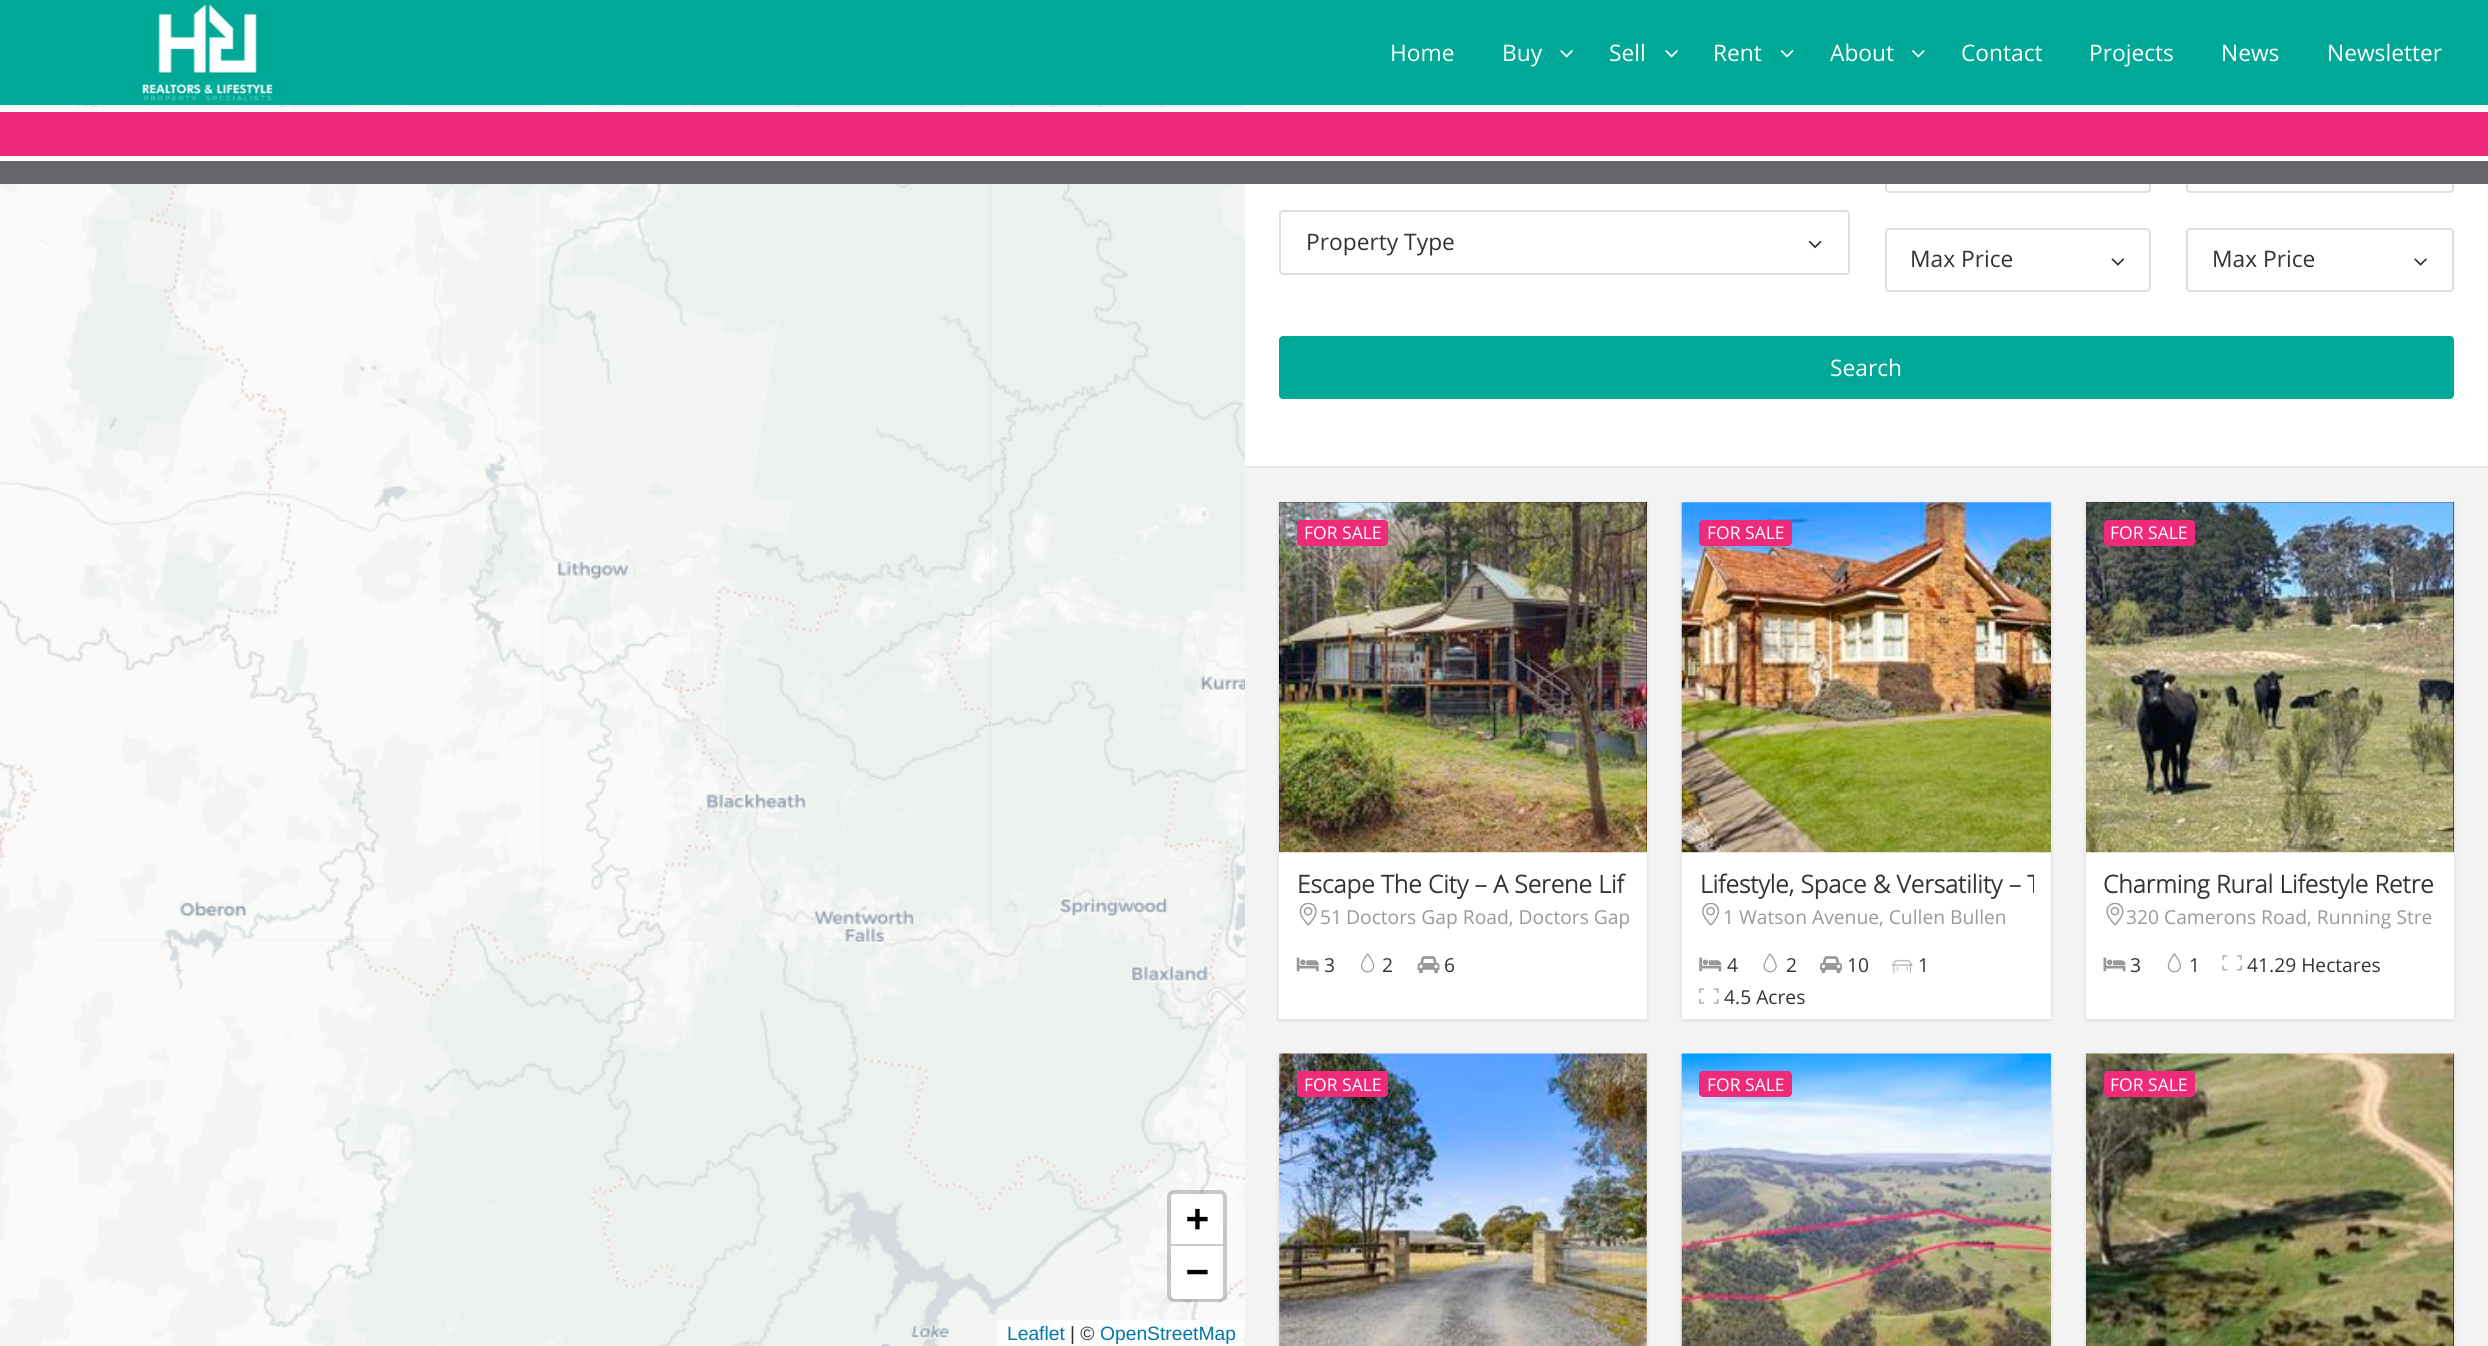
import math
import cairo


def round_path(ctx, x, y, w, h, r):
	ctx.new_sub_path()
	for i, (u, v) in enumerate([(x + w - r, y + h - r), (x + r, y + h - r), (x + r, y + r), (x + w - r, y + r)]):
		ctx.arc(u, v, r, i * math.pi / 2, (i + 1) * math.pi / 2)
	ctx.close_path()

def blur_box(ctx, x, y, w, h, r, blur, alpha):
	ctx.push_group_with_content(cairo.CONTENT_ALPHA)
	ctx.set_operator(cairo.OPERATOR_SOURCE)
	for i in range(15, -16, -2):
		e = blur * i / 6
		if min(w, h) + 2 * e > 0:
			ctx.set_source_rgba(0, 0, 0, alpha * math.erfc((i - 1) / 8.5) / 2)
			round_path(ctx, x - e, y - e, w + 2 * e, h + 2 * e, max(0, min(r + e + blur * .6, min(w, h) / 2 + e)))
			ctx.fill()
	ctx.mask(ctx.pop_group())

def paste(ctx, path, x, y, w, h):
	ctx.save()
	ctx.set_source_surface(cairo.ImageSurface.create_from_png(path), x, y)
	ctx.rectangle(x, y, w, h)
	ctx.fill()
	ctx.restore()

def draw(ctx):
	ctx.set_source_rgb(0.953, 0.953, 0.953)
	ctx.paint()
	ctx.set_source_rgb(0, 0.663, 0.592)
	ctx.rectangle(0, 0, 2488, 105)
	ctx.fill()
	paste(ctx, 'media/1.png', 142, 4, 131, 97)
	ctx.select_font_face('Open Sans')
	ctx.set_font_size(22.75)
	ctx.set_source_rgb(1, 1, 1)
	ctx.move_to(1390, 61)
	ctx.show_text('Home')
	ctx.move_to(1502, 61)
	ctx.show_text('Buy')
	paste(ctx, 'media/2.png', 1560, 50, 13, 8)
	ctx.move_to(1609, 61)
	ctx.show_text('Sell')
	paste(ctx, 'media/2.png', 1665, 50, 13, 8)
	ctx.move_to(1713, 61)
	ctx.show_text('Rent')
	paste(ctx, 'media/3.png', 1780, 50, 14, 8)
	ctx.move_to(1830, 61)
	ctx.show_text('About')
	paste(ctx, 'media/4.png', 1912, 50, 13, 8)
	for x, y, s in [
		(1961, 61, 'Contact'),
		(2089, 61, 'Projects'),
		(2221, 61, 'News'),
		(2327, 61, 'Newsletter'),
	]:
		ctx.move_to(x, y)
		ctx.show_text(s)
	ctx.set_source_rgb(0.867, 0.867, 0.867)
	ctx.rectangle(95, 105, 896, 835)
	ctx.fill()
	paste(ctx, 'media/28.png', 0, 105, 95, 387)
	paste(ctx, 'media/29.png', 95, 105, 448, 387)
	paste(ctx, 'media/30.png', 542, 105, 449, 387)
	ctx.set_source_rgb(0.91, 0.91, 0.91)
	ctx.rectangle(1244, 466, 1244, 2)
	ctx.fill()
	paste(ctx, 'media/31.png', 991, 105, 254, 387)
	ctx.set_source_rgb(1, 1, 1)
	ctx.rectangle(0, 107, 1245, 5)
	ctx.fill()
	ctx.rectangle(1245, 105, 1243, 361)
	ctx.fill()
	round_path(ctx, 1886, 129, 264, 63, 3)
	ctx.set_source_rgb(0.875, 0.875, 0.875)
	ctx.stroke()
	round_path(ctx, 2187, 129, 266, 63, 3)
	ctx.stroke()
	ctx.set_source_rgb(0.933, 0.169, 0.482)
	ctx.rectangle(0, 112, 2488, 44)
	ctx.fill()
	ctx.set_source_rgb(1, 1, 1)
	ctx.rectangle(0, 156, 2454, 5)
	ctx.fill()
	ctx.set_source_rgb(0.392, 0.396, 0.412)
	ctx.rectangle(0, 161, 2488, 23)
	ctx.fill()
	round_path(ctx, 1280, 211, 569, 63, 3)
	ctx.set_source_rgb(0.875, 0.875, 0.875)
	ctx.stroke()
	ctx.set_source_rgb(0.2, 0.2, 0.2)
	ctx.move_to(1306, 250)
	ctx.show_text('Property Type')
	paste(ctx, 'media/5.png', 1808, 240, 14, 9)
	round_path(ctx, 1886, 229, 264, 62, 3)
	ctx.set_source_rgb(0.875, 0.875, 0.875)
	ctx.stroke()
	ctx.set_source_rgb(0.2, 0.2, 0.2)
	ctx.move_to(1910, 267)
	ctx.show_text('Max Price')
	paste(ctx, 'media/6.png', 2111, 258, 14, 8)
	round_path(ctx, 2187, 229, 266, 62, 3)
	ctx.set_source_rgb(0.875, 0.875, 0.875)
	ctx.stroke()
	ctx.set_source_rgb(0.2, 0.2, 0.2)
	ctx.move_to(2212, 267)
	ctx.show_text('Max Price')
	paste(ctx, 'media/7.png', 2414, 258, 13, 8)
	ctx.set_source_rgb(0, 0.663, 0.592)
	round_path(ctx, 1279, 336, 1175, 63, 4)
	ctx.fill()
	ctx.set_source_rgb(1, 1, 1)
	ctx.move_to(1830, 376)
	ctx.show_text('Search')
	ctx.set_source_rgb(0, 0, 0)
	blur_box(ctx, 1279, 504, 368, 516, 0, 2, 0.13)
	ctx.set_source_rgb(1, 1, 1)
	ctx.rectangle(1279, 852, 368, 167)
	ctx.fill()
	ctx.set_source_rgb(0, 0, 0)
	ctx.rectangle(1279, 502, 368, 350)
	ctx.fill()
	paste(ctx, 'media/8.png', 1279, 502, 368, 351)
	ctx.set_source_rgb(0.933, 0.169, 0.482)
	round_path(ctx, 1297, 520, 91, 26, 4)
	ctx.fill()
	ctx.set_font_size(17.5)
	ctx.set_source_rgb(1, 1, 1)
	ctx.move_to(1304, 539)
	ctx.show_text('FOR SALE')
	ctx.select_font_face('Open Sans', cairo.FONT_SLANT_NORMAL, cairo.FONT_WEIGHT_BOLD)
	ctx.set_font_size(24.5)
	ctx.set_source_rgb(0.2, 0.2, 0.2)
	ctx.move_to(1297, 893)
	ctx.show_text('Escape The City – A Serene Lif')
	paste(ctx, 'media/9.png', 1299, 903, 18, 23)
	ctx.select_font_face('Open Sans')
	ctx.set_font_size(19.25)
	ctx.set_source_rgb(0.6, 0.6, 0.6)
	ctx.move_to(1320, 924)
	ctx.show_text('51')
	ctx.save()
	ctx.rectangle(1279, 903, 350, 44)
	ctx.clip()
	ctx.move_to(1346, 924)
	ctx.show_text('Doctors Gap Road, Doctors Gap')
	ctx.restore()
	paste(ctx, 'media/10.png', 1296, 957, 23, 15)
	ctx.set_source_rgb(0.2, 0.2, 0.2)
	ctx.move_to(1324, 972)
	ctx.show_text('3')
	paste(ctx, 'media/11.png', 1361, 953, 14, 20)
	ctx.move_to(1382, 972)
	ctx.show_text('2')
	paste(ctx, 'media/12.png', 1417, 956, 23, 18)
	ctx.move_to(1444, 972)
	ctx.show_text('6')
	ctx.set_source_rgb(0, 0, 0)
	blur_box(ctx, 1682, 504, 369, 516, 0, 2, 0.13)
	ctx.set_source_rgb(1, 1, 1)
	ctx.rectangle(1682, 502, 369, 517)
	ctx.fill()
	paste(ctx, 'media/13.png', 1681, 502, 370, 351)
	ctx.set_source_rgb(0.933, 0.169, 0.482)
	round_path(ctx, 1699, 520, 93, 26, 4)
	ctx.fill()
	ctx.set_font_size(17.5)
	ctx.set_source_rgb(1, 1, 1)
	ctx.move_to(1707, 539)
	ctx.show_text('FOR SALE')
	ctx.save()
	ctx.rectangle(1682, 852, 352, 51)
	ctx.clip()
	ctx.select_font_face('Open Sans', cairo.FONT_SLANT_NORMAL, cairo.FONT_WEIGHT_BOLD)
	ctx.set_font_size(24.5)
	ctx.set_source_rgb(0.2, 0.2, 0.2)
	ctx.move_to(1700, 893)
	ctx.show_text('Lifestyle, Space & Versatility – T')
	ctx.restore()
	paste(ctx, 'media/14.png', 1702, 903, 18, 23)
	ctx.set_font_size(19.25)
	ctx.set_source_rgb(0.6, 0.6, 0.6)
	ctx.move_to(1723, 924)
	ctx.show_text('1 Watson Avenue, Cullen Bullen')
	paste(ctx, 'media/15.png', 1699, 957, 23, 15)
	ctx.set_source_rgb(0.2, 0.2, 0.2)
	ctx.move_to(1727, 972)
	ctx.show_text('4')
	paste(ctx, 'media/16.png', 1763, 953, 14, 20)
	ctx.move_to(1786, 972)
	ctx.show_text('2')
	paste(ctx, 'media/17.png', 1820, 956, 22, 18)
	ctx.move_to(1847, 972)
	ctx.show_text('10')
	paste(ctx, 'media/18.png', 1891, 959, 22, 14)
	ctx.move_to(1918, 972)
	ctx.show_text('1')
	paste(ctx, 'media/19.png', 1699, 988, 20, 16)
	ctx.move_to(1724, 1004)
	ctx.show_text('4.5 Acres')
	ctx.set_source_rgb(0, 0, 0)
	blur_box(ctx, 2086, 504, 368, 516, 0, 2, 0.13)
	ctx.set_source_rgb(1, 1, 1)
	ctx.rectangle(2086, 852, 368, 167)
	ctx.fill()
	ctx.set_source_rgb(0, 0, 0)
	ctx.rectangle(2086, 502, 368, 350)
	ctx.fill()
	paste(ctx, 'media/20.png', 2086, 502, 368, 351)
	ctx.set_source_rgb(0.933, 0.169, 0.482)
	round_path(ctx, 2104, 520, 91, 26, 4)
	ctx.fill()
	ctx.set_font_size(17.5)
	ctx.set_source_rgb(1, 1, 1)
	ctx.move_to(2110, 539)
	ctx.show_text('FOR SALE')
	ctx.select_font_face('Open Sans', cairo.FONT_SLANT_NORMAL, cairo.FONT_WEIGHT_BOLD)
	ctx.set_font_size(24.5)
	ctx.set_source_rgb(0.2, 0.2, 0.2)
	ctx.move_to(2103, 893)
	ctx.show_text('Charming Rural Lifestyle Retre')
	paste(ctx, 'media/21.png', 2106, 903, 18, 23)
	ctx.select_font_face('Open Sans')
	ctx.set_font_size(19.25)
	ctx.set_source_rgb(0.6, 0.6, 0.6)
	ctx.move_to(2126, 924)
	ctx.show_text('320 Camerons Road, Running Stre')
	paste(ctx, 'media/22.png', 2103, 957, 23, 15)
	ctx.set_source_rgb(0.2, 0.2, 0.2)
	ctx.move_to(2130, 972)
	ctx.show_text('3')
	paste(ctx, 'media/23.png', 2167, 953, 14, 20)
	ctx.move_to(2189, 972)
	ctx.show_text('1')
	paste(ctx, 'media/24.png', 2222, 955, 20, 16)
	ctx.move_to(2247, 972)
	ctx.show_text('41.29 Hectares')
	ctx.set_source_rgb(0, 0, 0)
	blur_box(ctx, 1279, 1055, 368, 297, 0, 2, 0.13)
	paste(ctx, 'media/25.png', 1279, 1053, 368, 293)
	ctx.set_source_rgb(0.933, 0.169, 0.482)
	round_path(ctx, 1297, 1071, 91, 26, 4)
	ctx.fill()
	ctx.set_font_size(17.5)
	ctx.set_source_rgb(1, 1, 1)
	ctx.move_to(1304, 1091)
	ctx.show_text('FOR SALE')
	ctx.set_source_rgb(0, 0, 0)
	blur_box(ctx, 1682, 1055, 369, 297, 0, 2, 0.13)
	paste(ctx, 'media/26.png', 1681, 1053, 370, 293)
	ctx.set_source_rgb(0.933, 0.169, 0.482)
	round_path(ctx, 1699, 1071, 93, 26, 4)
	ctx.fill()
	ctx.set_source_rgb(1, 1, 1)
	ctx.move_to(1707, 1091)
	ctx.show_text('FOR SALE')
	ctx.set_source_rgb(0, 0, 0)
	blur_box(ctx, 2086, 1055, 368, 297, 0, 2, 0.13)
	ctx.set_source_rgb(0, 0, 0)
	ctx.rectangle(2453, 1054, 1, 292)
	ctx.fill()
	paste(ctx, 'media/27.png', 2086, 1053, 368, 293)
	ctx.set_source_rgb(0.933, 0.169, 0.482)
	round_path(ctx, 2104, 1071, 91, 26, 4)
	ctx.fill()
	ctx.set_source_rgb(1, 1, 1)
	ctx.move_to(2110, 1091)
	ctx.show_text('FOR SALE')
	paste(ctx, 'media/32.png', 0, 492, 95, 448)
	paste(ctx, 'media/33.png', 95, 491, 448, 449)
	paste(ctx, 'media/34.png', 542, 492, 449, 448)
	paste(ctx, 'media/35.png', 991, 492, 254, 448)
	paste(ctx, 'media/36.png', 0, 940, 95, 406)
	paste(ctx, 'media/37.png', 95, 940, 448, 406)
	paste(ctx, 'media/38.png', 543, 940, 448, 406)
	paste(ctx, 'media/39.png', 991, 940, 254, 406)
	round_path(ctx, 1169, 1192, 56, 108, 5)
	ctx.set_source_rgba(0, 0, 0, 0.2)
	ctx.set_line_width(4)
	ctx.stroke()
	ctx.set_source_rgb(1, 1, 1)
	ctx.new_path()
	ctx.move_to(1175, 1194)
	ctx.line_to(1219, 1194)
	ctx.curve_to(1221, 1194, 1223, 1196, 1223, 1198)
	ctx.line_to(1223, 1246)
	ctx.line_to(1171, 1246)
	ctx.line_to(1171, 1198)
	ctx.curve_to(1171, 1196, 1173, 1194, 1175, 1194)
	ctx.close_path()
	ctx.fill()
	ctx.set_source_rgb(0.8, 0.8, 0.8)
	ctx.rectangle(1171, 1244, 52, 2)
	ctx.fill()
	ctx.select_font_face('DejaVu Sans Mono', cairo.FONT_SLANT_NORMAL, cairo.FONT_WEIGHT_BOLD)
	ctx.set_font_size(38)
	ctx.set_source_rgb(0, 0, 0)
	ctx.move_to(1186, 1231)
	ctx.show_text('+')
	ctx.set_source_rgb(1, 1, 1)
	ctx.new_path()
	ctx.move_to(1171, 1246)
	ctx.line_to(1223, 1246)
	ctx.line_to(1223, 1295)
	ctx.curve_to(1223, 1297, 1221, 1299, 1219, 1299)
	ctx.line_to(1175, 1299)
	ctx.curve_to(1173, 1299, 1171, 1297, 1171, 1295)
	ctx.close_path()
	ctx.fill()
	ctx.set_source_rgb(0, 0, 0)
	ctx.move_to(1186, 1284)
	ctx.show_text('−')
	ctx.set_source_rgba(1, 1, 1, 0.7)
	ctx.rectangle(998, 1320, 246, 26)
	ctx.fill()
	ctx.select_font_face('Liberation Sans')
	ctx.set_font_size(19.25)
	ctx.set_source_rgb(0, 0.471, 0.659)
	ctx.move_to(1007, 1340)
	ctx.show_text('Leaflet')
	ctx.set_source_rgb(0.2, 0.2, 0.2)
	ctx.move_to(1070, 1340)
	ctx.show_text('| ©')
	ctx.set_source_rgb(0, 0.471, 0.659)
	ctx.move_to(1100, 1340)
	ctx.show_text('OpenStreetMap')


surface = cairo.ImageSurface(cairo.FORMAT_RGB24, 2488, 1346)
ctx = cairo.Context(surface)
options = cairo.FontOptions()
options.set_hint_metrics(cairo.HINT_METRICS_OFF)
options.set_hint_style(cairo.HINT_STYLE_NONE)
ctx.set_font_options(options)
ctx.set_miter_limit(4)
draw(ctx)
surface.write_to_png('image.png')
